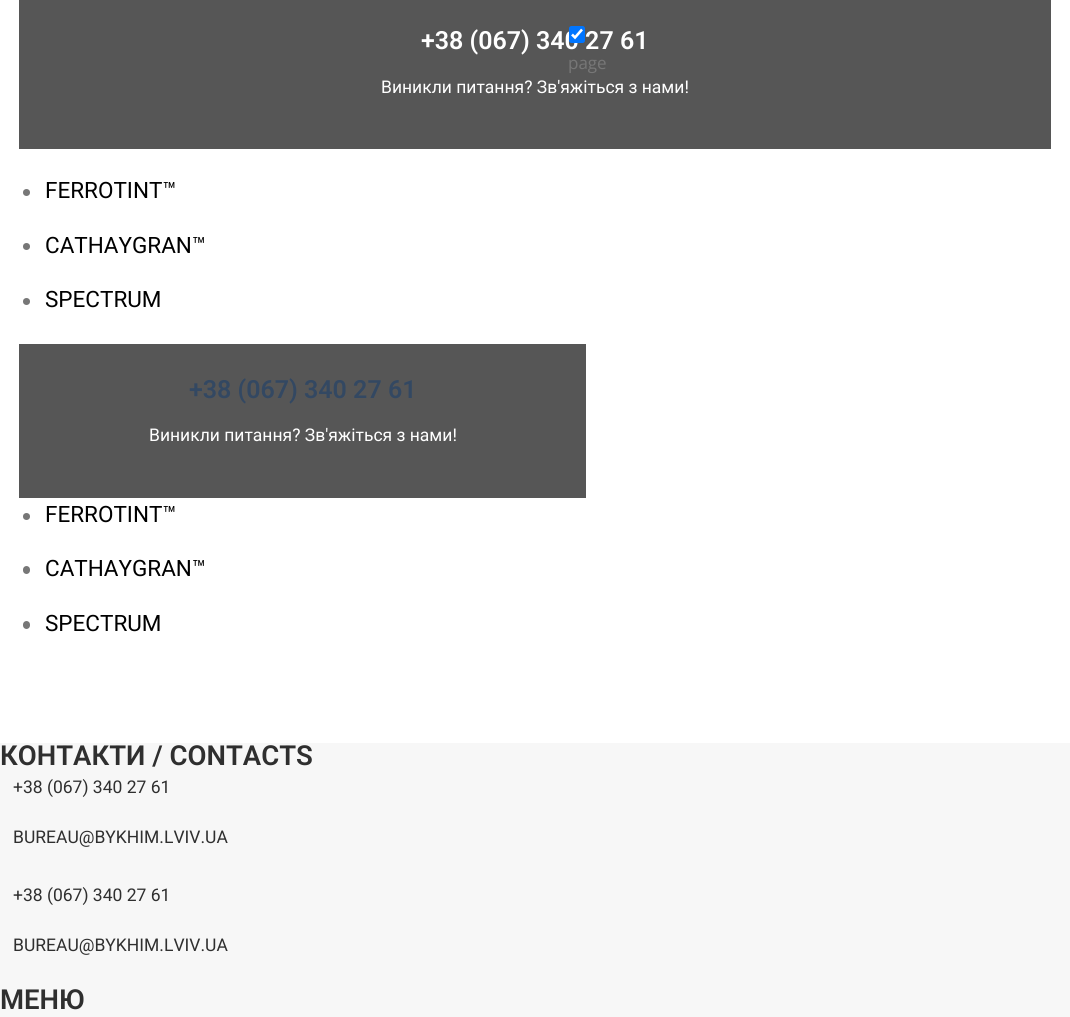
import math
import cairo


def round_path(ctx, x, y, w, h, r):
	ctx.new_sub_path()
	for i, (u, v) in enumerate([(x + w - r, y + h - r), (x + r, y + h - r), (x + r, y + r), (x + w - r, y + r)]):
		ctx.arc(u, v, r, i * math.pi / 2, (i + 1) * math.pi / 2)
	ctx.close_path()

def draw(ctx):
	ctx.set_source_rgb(1, 1, 1)
	ctx.paint()
	ctx.set_source_rgb(0.337, 0.337, 0.337)
	ctx.rectangle(19, 0, 1032, 149)
	ctx.fill()
	ctx.select_font_face('Roboto SemiBold')
	ctx.set_font_size(25)
	ctx.set_source_rgb(1, 1, 1)
	ctx.move_to(421, 49)
	ctx.show_text('+38 (067) 340 27 61')
	ctx.select_font_face('Roboto')
	ctx.set_font_size(17.5)
	ctx.move_to(381, 93)
	ctx.show_text('Виникли питання? Зв\'яжіться з нами!')
	ctx.set_source_rgb(0.467, 0.467, 0.467)
	ctx.new_path()
	ctx.arc(26.5, 192.5, 3.5, 0, 2 * math.pi)
	ctx.fill()
	ctx.set_font_size(22.5)
	ctx.set_source_rgb(0, 0, 0)
	ctx.move_to(45, 198)
	ctx.show_text('FERROTINT™')
	ctx.set_source_rgb(0.467, 0.467, 0.467)
	ctx.new_path()
	ctx.arc(26.5, 246.5, 3.5, 0, 2 * math.pi)
	ctx.fill()
	ctx.set_source_rgb(0, 0, 0)
	ctx.move_to(45, 253)
	ctx.show_text('CATHAYGRAN™')
	ctx.set_source_rgb(0.467, 0.467, 0.467)
	ctx.new_path()
	ctx.arc(26.5, 301.5, 3.5, 0, 2 * math.pi)
	ctx.fill()
	ctx.set_source_rgb(0, 0, 0)
	ctx.move_to(45, 307)
	ctx.show_text('SPECTRUM')
	ctx.set_source_rgb(0.337, 0.337, 0.337)
	ctx.rectangle(19, 344, 567, 154)
	ctx.fill()
	ctx.select_font_face('Roboto SemiBold')
	ctx.set_font_size(25)
	ctx.set_source_rgb(0.2, 0.282, 0.384)
	ctx.move_to(189, 398)
	ctx.show_text('+38 (067) 340 27 61')
	ctx.select_font_face('Roboto')
	ctx.set_font_size(17.5)
	ctx.set_source_rgb(1, 1, 1)
	ctx.move_to(149, 441)
	ctx.show_text('Виникли питання? Зв\'яжіться з нами!')
	ctx.set_source_rgb(0.467, 0.467, 0.467)
	ctx.new_path()
	ctx.arc(26.5, 516.5, 3.5, 0, 2 * math.pi)
	ctx.fill()
	ctx.set_font_size(22.5)
	ctx.set_source_rgb(0, 0, 0)
	ctx.move_to(45, 522)
	ctx.show_text('FERROTINT™')
	ctx.set_source_rgb(0.467, 0.467, 0.467)
	round_path(ctx, 23, 566, 7, 8, 3.5)
	ctx.fill()
	ctx.set_source_rgb(0, 0, 0)
	ctx.move_to(45, 576)
	ctx.show_text('CATHAYGRAN™')
	ctx.set_source_rgb(0.467, 0.467, 0.467)
	round_path(ctx, 23, 621, 7, 8, 3.5)
	ctx.fill()
	ctx.set_source_rgb(0, 0, 0)
	ctx.move_to(45, 631)
	ctx.show_text('SPECTRUM')
	ctx.set_source_rgb(0, 0.459, 1)
	round_path(ctx, 569, 26, 16, 17, 2.5)
	ctx.fill()
	ctx.new_path()
	ctx.move_to(572, 34.5)
	ctx.line_to(575, 37.5)
	ctx.line_to(582, 29.5)
	ctx.set_source_rgb(1, 1, 1)
	ctx.set_line_width(2.6)
	ctx.stroke()
	ctx.select_font_face('Open Sans')
	ctx.set_font_size(17)
	ctx.set_source_rgb(0.467, 0.467, 0.467)
	ctx.move_to(568, 69)
	ctx.show_text('page')
	ctx.set_source_rgb(0.965, 0.965, 0.965)
	ctx.rectangle(0, 743, 1070, 274)
	ctx.fill()
	ctx.select_font_face('Roboto SemiBold')
	ctx.set_font_size(27.5)
	ctx.set_source_rgb(0.184, 0.184, 0.184)
	ctx.move_to(0, 765)
	ctx.show_text('КОНТАКТИ / CONTACTS')
	ctx.select_font_face('Roboto')
	ctx.set_font_size(17.5)
	for x, y, s in [
		(13, 793, '+38 (067) 340 27 61'),
		(13, 843, 'BUREAU@BYKHIM.LVIV.UA'),
		(13, 901, '+38 (067) 340 27 61'),
		(13, 951, 'BUREAU@BYKHIM.LVIV.UA'),
	]:
		ctx.move_to(x, y)
		ctx.show_text(s)
	ctx.select_font_face('Roboto SemiBold')
	ctx.set_font_size(27.5)
	ctx.move_to(0, 1009)
	ctx.show_text('МЕНЮ')


surface = cairo.ImageSurface(cairo.FORMAT_RGB24, 1070, 1017)
ctx = cairo.Context(surface)
options = cairo.FontOptions()
options.set_hint_metrics(cairo.HINT_METRICS_OFF)
options.set_hint_style(cairo.HINT_STYLE_NONE)
ctx.set_font_options(options)
ctx.set_miter_limit(4)
draw(ctx)
surface.write_to_png('image.png')
